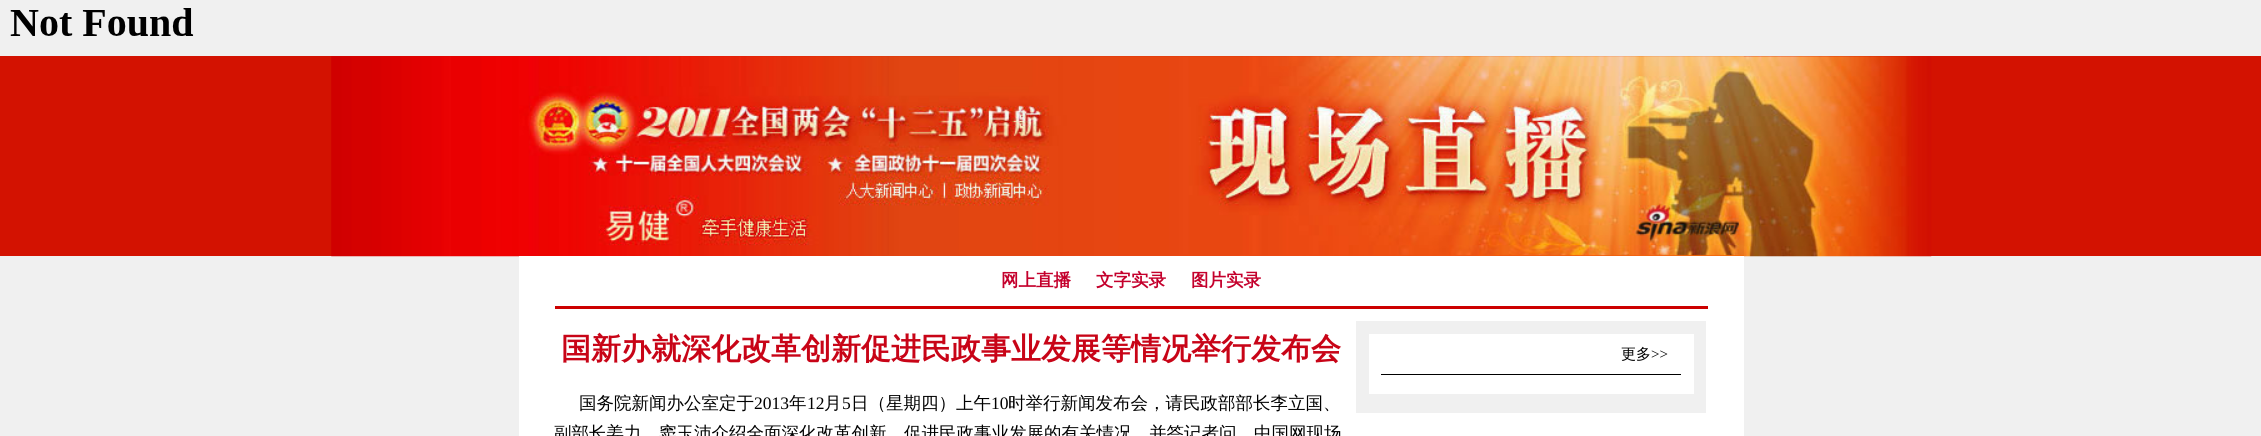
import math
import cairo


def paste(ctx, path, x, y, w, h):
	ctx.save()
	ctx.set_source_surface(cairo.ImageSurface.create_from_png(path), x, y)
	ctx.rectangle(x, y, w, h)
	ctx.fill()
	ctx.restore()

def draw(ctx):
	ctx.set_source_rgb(0.941, 0.941, 0.941)
	ctx.paint()
	paste(ctx, 'media/1.png', 10, 8, 184, 28)
	ctx.set_source_rgb(0.827, 0.071, 0.004)
	ctx.rectangle(0, 56, 2261, 200)
	ctx.fill()
	paste(ctx, 'media/2.png', 331, 56, 1601, 201)
	paste(ctx, 'media/3.png', 519, 56, 1225, 200)
	ctx.set_source_rgb(1, 1, 1)
	ctx.rectangle(519, 256, 1225, 180)
	ctx.fill()
	ctx.set_source_rgb(0.8, 0, 0)
	ctx.rectangle(555, 306, 1153, 3)
	ctx.fill()
	ctx.select_font_face('WenQuanYi Zen Hei', cairo.FONT_SLANT_NORMAL, cairo.FONT_WEIGHT_BOLD)
	ctx.set_font_size(17.5)
	ctx.set_source_rgb(0.769, 0, 0.173)
	for x, y, s in [
		(1001, 286, '网上直播'),
		(1096, 286, '文字实录'),
		(1191, 286, '图片实录'),
	]:
		ctx.move_to(x, y)
		ctx.show_text(s)
	ctx.set_font_size(30)
	ctx.set_source_rgb(0.784, 0.016, 0.09)
	ctx.move_to(561, 359)
	ctx.show_text('国新办就深化改革创新促进民政事业发展等情况举行发布会')
	ctx.select_font_face('WenQuanYi Zen Hei Medium')
	ctx.set_font_size(17.5)
	ctx.set_source_rgb(0, 0, 0)
	ctx.move_to(579, 409)
	ctx.show_text('国务院新闻办公室定于')
	ctx.select_font_face('Liberation Serif')
	ctx.move_to(754, 409)
	ctx.show_text('2013')
	ctx.select_font_face('WenQuanYi Zen Hei Medium')
	ctx.move_to(789, 409)
	ctx.show_text('年')
	ctx.select_font_face('Liberation Serif')
	ctx.move_to(807, 409)
	ctx.show_text('12')
	ctx.select_font_face('WenQuanYi Zen Hei Medium')
	ctx.move_to(824, 409)
	ctx.show_text('月')
	ctx.select_font_face('Liberation Serif')
	ctx.move_to(842, 409)
	ctx.show_text('5')
	ctx.select_font_face('WenQuanYi Zen Hei Medium')
	ctx.move_to(851, 409)
	ctx.show_text('日（星期四）上午')
	ctx.select_font_face('Liberation Serif')
	ctx.move_to(991, 409)
	ctx.show_text('10')
	ctx.select_font_face('WenQuanYi Zen Hei Medium')
	ctx.move_to(1008, 409)
	ctx.show_text('时举行新闻发布会，请民政部部长李立国、')
	ctx.move_to(554, 439)
	ctx.show_text('副部长姜力、窦玉沛介绍全面深化改革创新，促进民政事业发展的有关情况，并答记者问。中国网现场')
	ctx.set_source_rgb(0.941, 0.941, 0.941)
	ctx.rectangle(1356, 321, 350, 92)
	ctx.fill()
	ctx.set_source_rgb(1, 1, 1)
	ctx.rectangle(1369, 334, 325, 60)
	ctx.fill()
	ctx.set_source_rgb(0, 0, 0)
	ctx.rectangle(1381, 374, 300, 1)
	ctx.fill()
	ctx.set_font_size(15)
	ctx.move_to(1621, 359)
	ctx.show_text('更多')
	ctx.select_font_face('Liberation Serif')
	ctx.move_to(1651, 359)
	ctx.show_text('>>')


surface = cairo.ImageSurface(cairo.FORMAT_RGB24, 2261, 436)
ctx = cairo.Context(surface)
options = cairo.FontOptions()
options.set_hint_metrics(cairo.HINT_METRICS_OFF)
options.set_hint_style(cairo.HINT_STYLE_NONE)
ctx.set_font_options(options)
ctx.set_miter_limit(4)
draw(ctx)
surface.write_to_png('image.png')
